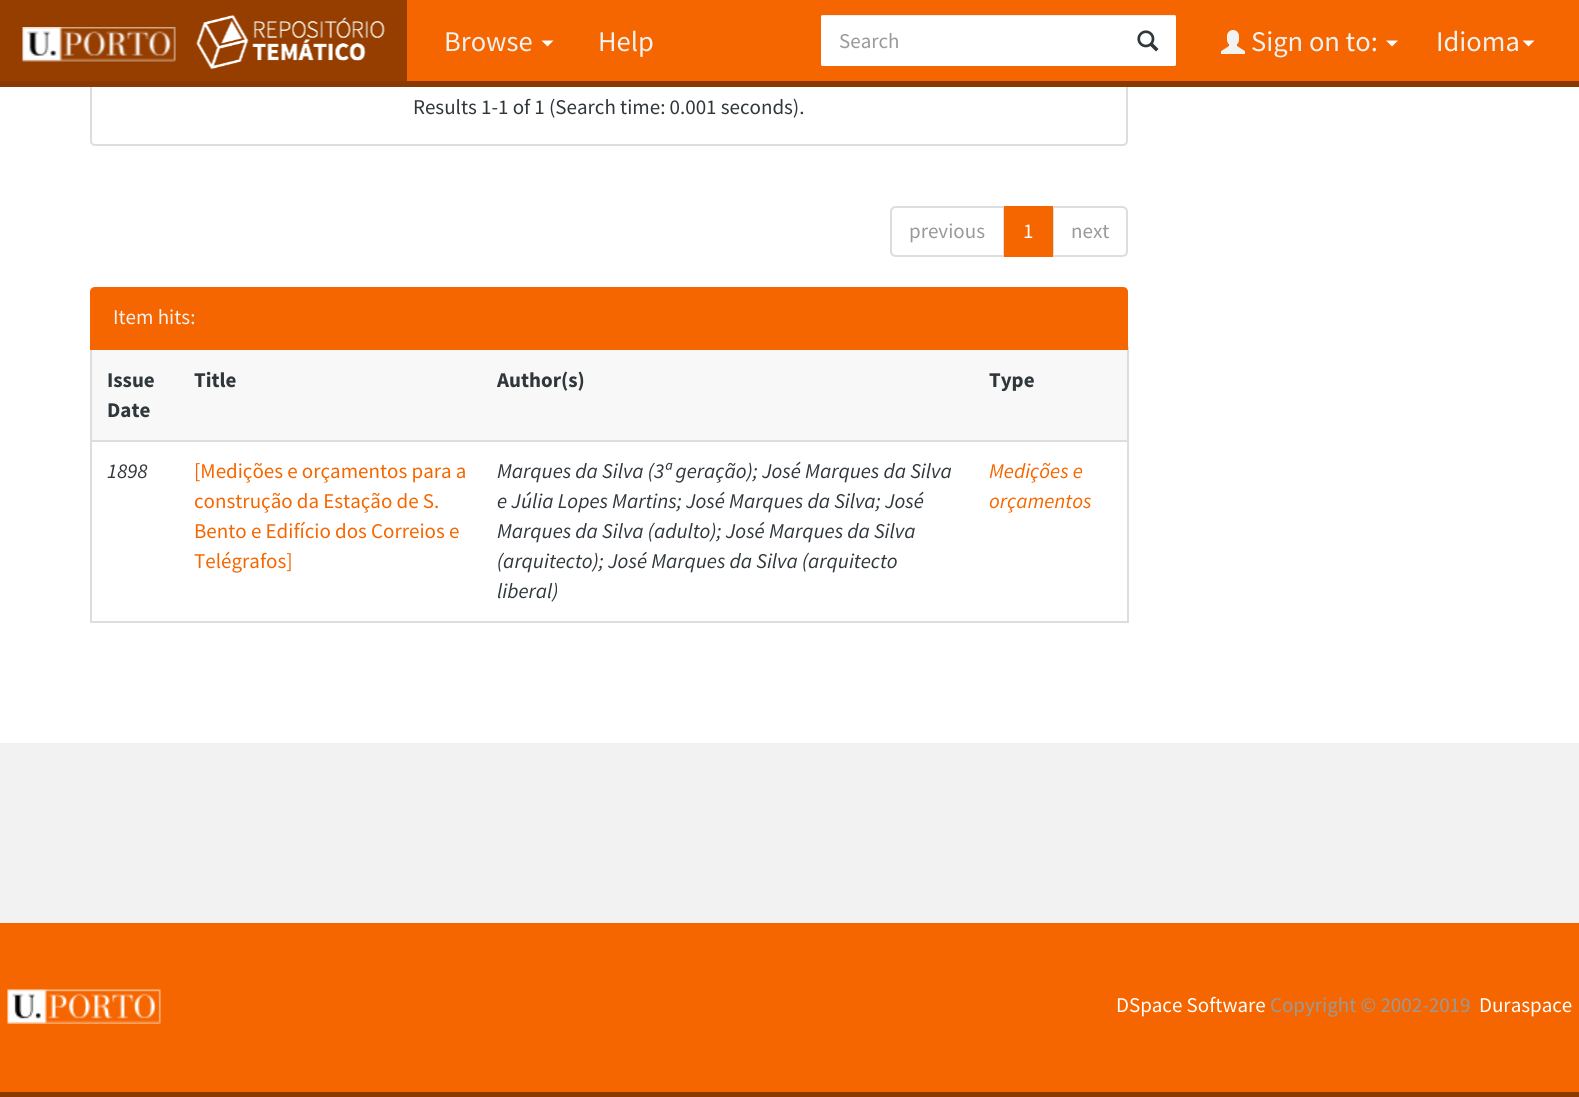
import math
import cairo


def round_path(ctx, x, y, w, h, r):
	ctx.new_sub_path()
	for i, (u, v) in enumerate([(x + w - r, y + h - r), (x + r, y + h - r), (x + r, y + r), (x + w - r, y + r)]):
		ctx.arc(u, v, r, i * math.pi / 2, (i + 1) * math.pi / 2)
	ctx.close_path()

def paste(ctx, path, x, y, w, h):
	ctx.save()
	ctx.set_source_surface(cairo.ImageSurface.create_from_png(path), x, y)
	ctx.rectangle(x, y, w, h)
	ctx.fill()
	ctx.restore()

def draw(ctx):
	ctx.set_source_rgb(0.949, 0.949, 0.949)
	ctx.paint()
	ctx.set_source_rgb(1, 1, 1)
	ctx.rectangle(0, 87, 1579, 656)
	ctx.fill()
	round_path(ctx, 91, 69, 1036, 76, 4)
	ctx.set_source_rgb(0.867, 0.867, 0.867)
	ctx.stroke()
	ctx.set_source_rgb(0.961, 0.4, 0)
	ctx.rectangle(407, 0, 1172, 81)
	ctx.fill()
	ctx.set_source_rgb(0.541, 0.224, 0)
	ctx.rectangle(0, 81, 1579, 6)
	ctx.fill()
	ctx.set_source_rgb(0.584, 0.243, 0)
	ctx.rectangle(0, 0, 407, 81)
	ctx.fill()
	paste(ctx, 'media/1.png', 22, 27, 154, 35)
	paste(ctx, 'media/2.png', 196, 15, 189, 54)
	ctx.select_font_face('Source Sans Pro')
	ctx.set_font_size(28.5)
	ctx.set_source_rgb(0.949, 0.949, 0.949)
	ctx.move_to(444, 51)
	ctx.show_text('Browse')
	ctx.set_source_rgb(1, 1, 1)
	ctx.new_path()
	ctx.move_to(541.5, 40.5)
	ctx.line_to(553.5, 40.5)
	ctx.line_to(547.5, 46.5)
	ctx.close_path()
	ctx.fill()
	ctx.set_source_rgb(0.949, 0.949, 0.949)
	ctx.move_to(598, 51)
	ctx.show_text('Help')
	ctx.set_source_rgb(1, 1, 1)
	round_path(ctx, 821, 15, 355, 51, 1.5)
	ctx.fill()
	ctx.set_source_rgba(0, 0, 0, 0.07)
	ctx.new_path()
	ctx.move_to(822, 16)
	ctx.line_to(1174, 16)
	ctx.curve_to(1175, 16, 1176, 17, 1176, 18)
	ctx.line_to(1176, 16)
	ctx.curve_to(1176, 16, 1175, 15, 1174, 15)
	ctx.line_to(822, 15)
	ctx.curve_to(822, 15, 821, 16, 821, 16)
	ctx.close_path()
	ctx.fill()
	ctx.set_font_size(21)
	ctx.set_source_rgb(0.6, 0.6, 0.6)
	ctx.move_to(839, 48)
	ctx.show_text('Search')
	paste(ctx, 'media/3.png', 1137, 30, 22, 22)
	paste(ctx, 'media/4.png', 1221, 30, 24, 24)
	ctx.set_font_size(28.5)
	ctx.set_source_rgb(0.949, 0.949, 0.949)
	ctx.move_to(1251, 51)
	ctx.show_text('Sign on to:')
	ctx.set_source_rgb(1, 1, 1)
	ctx.new_path()
	ctx.move_to(1386, 40.5)
	ctx.line_to(1398, 40.5)
	ctx.line_to(1392, 46.5)
	ctx.close_path()
	ctx.fill()
	ctx.set_source_rgb(0.949, 0.949, 0.949)
	ctx.move_to(1436, 51)
	ctx.show_text('Idioma')
	ctx.set_source_rgb(1, 1, 1)
	ctx.new_path()
	ctx.move_to(1522.5, 40.5)
	ctx.line_to(1534.5, 40.5)
	ctx.line_to(1528.5, 46.5)
	ctx.close_path()
	ctx.fill()
	ctx.set_font_size(21)
	ctx.set_source_rgb(0.184, 0.216, 0.231)
	ctx.move_to(413, 114)
	ctx.show_text('Results 1-1 of 1 (Search time: 0.001 seconds).')
	ctx.new_path()
	ctx.move_to(896, 207)
	ctx.line_to(1004, 207)
	ctx.line_to(1004, 256)
	ctx.line_to(896, 256)
	ctx.curve_to(893, 256, 891, 254, 891, 251)
	ctx.line_to(891, 212)
	ctx.curve_to(891, 209, 893, 207, 896, 207)
	ctx.close_path()
	ctx.set_source_rgb(0.867, 0.867, 0.867)
	ctx.stroke()
	ctx.set_source_rgb(0.6, 0.6, 0.6)
	ctx.move_to(909, 238)
	ctx.show_text('previous')
	ctx.new_path()
	ctx.move_to(1053, 207)
	ctx.line_to(1122, 207)
	ctx.curve_to(1125, 207, 1127, 209, 1127, 212)
	ctx.line_to(1127, 251)
	ctx.curve_to(1127, 254, 1125, 256, 1122, 256)
	ctx.line_to(1053, 256)
	ctx.close_path()
	ctx.set_source_rgb(0.867, 0.867, 0.867)
	ctx.stroke()
	ctx.set_source_rgb(0.961, 0.4, 0)
	ctx.rectangle(1004, 206, 49, 51)
	ctx.fill()
	ctx.set_source_rgb(1, 1, 1)
	ctx.move_to(1023, 238)
	ctx.show_text('1')
	ctx.set_source_rgb(0.6, 0.6, 0.6)
	ctx.move_to(1071, 238)
	ctx.show_text('next')
	ctx.set_source_rgb(0.961, 0.4, 0)
	ctx.new_path()
	ctx.move_to(95, 287)
	ctx.line_to(1123, 287)
	ctx.curve_to(1126, 287, 1128, 289, 1128, 292)
	ctx.line_to(1128, 347)
	ctx.line_to(90, 347)
	ctx.line_to(90, 292)
	ctx.curve_to(90, 289, 92, 287, 95, 287)
	ctx.close_path()
	ctx.fill()
	ctx.set_source_rgb(0.949, 0.949, 0.949)
	ctx.move_to(113, 324)
	ctx.show_text('Item hits:')
	ctx.set_source_rgb(0.867, 0.867, 0.867)
	ctx.rectangle(1127, 347, 2, 276)
	ctx.rectangle(90, 347, 2, 276)
	ctx.fill()
	ctx.set_source_rgb(0.961, 0.4, 0)
	ctx.rectangle(90, 347, 1038, 3)
	ctx.fill()
	ctx.set_source_rgb(0.867, 0.867, 0.867)
	ctx.rectangle(90, 621, 1038, 2)
	ctx.fill()
	ctx.set_source_rgb(0.969, 0.969, 0.969)
	ctx.rectangle(92, 350, 1035, 90)
	ctx.fill()
	ctx.select_font_face('Source Sans Pro', cairo.FONT_SLANT_NORMAL, cairo.FONT_WEIGHT_BOLD)
	ctx.set_source_rgb(0.184, 0.216, 0.231)
	for x, y, s in [
		(107, 387, 'Issue'),
		(107, 417, 'Date'),
		(194, 387, 'Title'),
		(497, 387, 'Author(s)'),
		(989, 387, 'Type'),
	]:
		ctx.move_to(x, y)
		ctx.show_text(s)
	ctx.select_font_face('Source Sans Pro', cairo.FONT_SLANT_ITALIC)
	ctx.move_to(107, 478)
	ctx.show_text('1898')
	ctx.select_font_face('Source Sans Pro')
	ctx.set_source_rgb(0.961, 0.4, 0)
	for x, y, s in [
		(194, 478, '[Medições e orçamentos para a'),
		(194, 508, 'construção da Estação de S.'),
		(194, 538, 'Bento e Edifício dos Correios e'),
		(194, 568, 'Telégrafos]'),
	]:
		ctx.move_to(x, y)
		ctx.show_text(s)
	ctx.select_font_face('Source Sans Pro', cairo.FONT_SLANT_ITALIC)
	ctx.set_source_rgb(0.184, 0.216, 0.231)
	for x, y, s in [
		(497, 478, 'Marques da Silva (3ª geração); José Marques da Silva'),
		(497, 508, 'e Júlia Lopes Martins; José Marques da Silva; José'),
		(497, 538, 'Marques da Silva (adulto); José Marques da Silva'),
		(497, 568, '(arquitecto); José Marques da Silva (arquitecto'),
		(497, 598, 'liberal)'),
	]:
		ctx.move_to(x, y)
		ctx.show_text(s)
	ctx.set_source_rgb(0.867, 0.867, 0.867)
	ctx.rectangle(90, 440, 1038, 2)
	ctx.fill()
	ctx.set_source_rgb(0.961, 0.4, 0)
	ctx.move_to(989, 478)
	ctx.show_text('Medições e')
	ctx.move_to(989, 508)
	ctx.show_text('orçamentos')
	ctx.rectangle(0, 923, 1579, 169)
	ctx.fill()
	ctx.set_source_rgb(0.541, 0.224, 0)
	ctx.rectangle(0, 1092, 1579, 5)
	ctx.fill()
	paste(ctx, 'media/5.png', 7, 989, 154, 35)
	ctx.select_font_face('Source Sans Pro')
	ctx.set_source_rgb(1, 1, 1)
	ctx.move_to(1116, 1012)
	ctx.show_text('DSpace Software')
	ctx.set_source_rgb(0.6, 0.6, 0.6)
	ctx.move_to(1270, 1012)
	ctx.show_text('Copyright © 2002-2019')
	ctx.set_source_rgb(1, 1, 1)
	ctx.move_to(1479, 1012)
	ctx.show_text('Duraspace')


surface = cairo.ImageSurface(cairo.FORMAT_RGB24, 1579, 1097)
ctx = cairo.Context(surface)
options = cairo.FontOptions()
options.set_hint_metrics(cairo.HINT_METRICS_OFF)
options.set_hint_style(cairo.HINT_STYLE_NONE)
ctx.set_font_options(options)
ctx.set_miter_limit(4)
draw(ctx)
surface.write_to_png('image.png')
